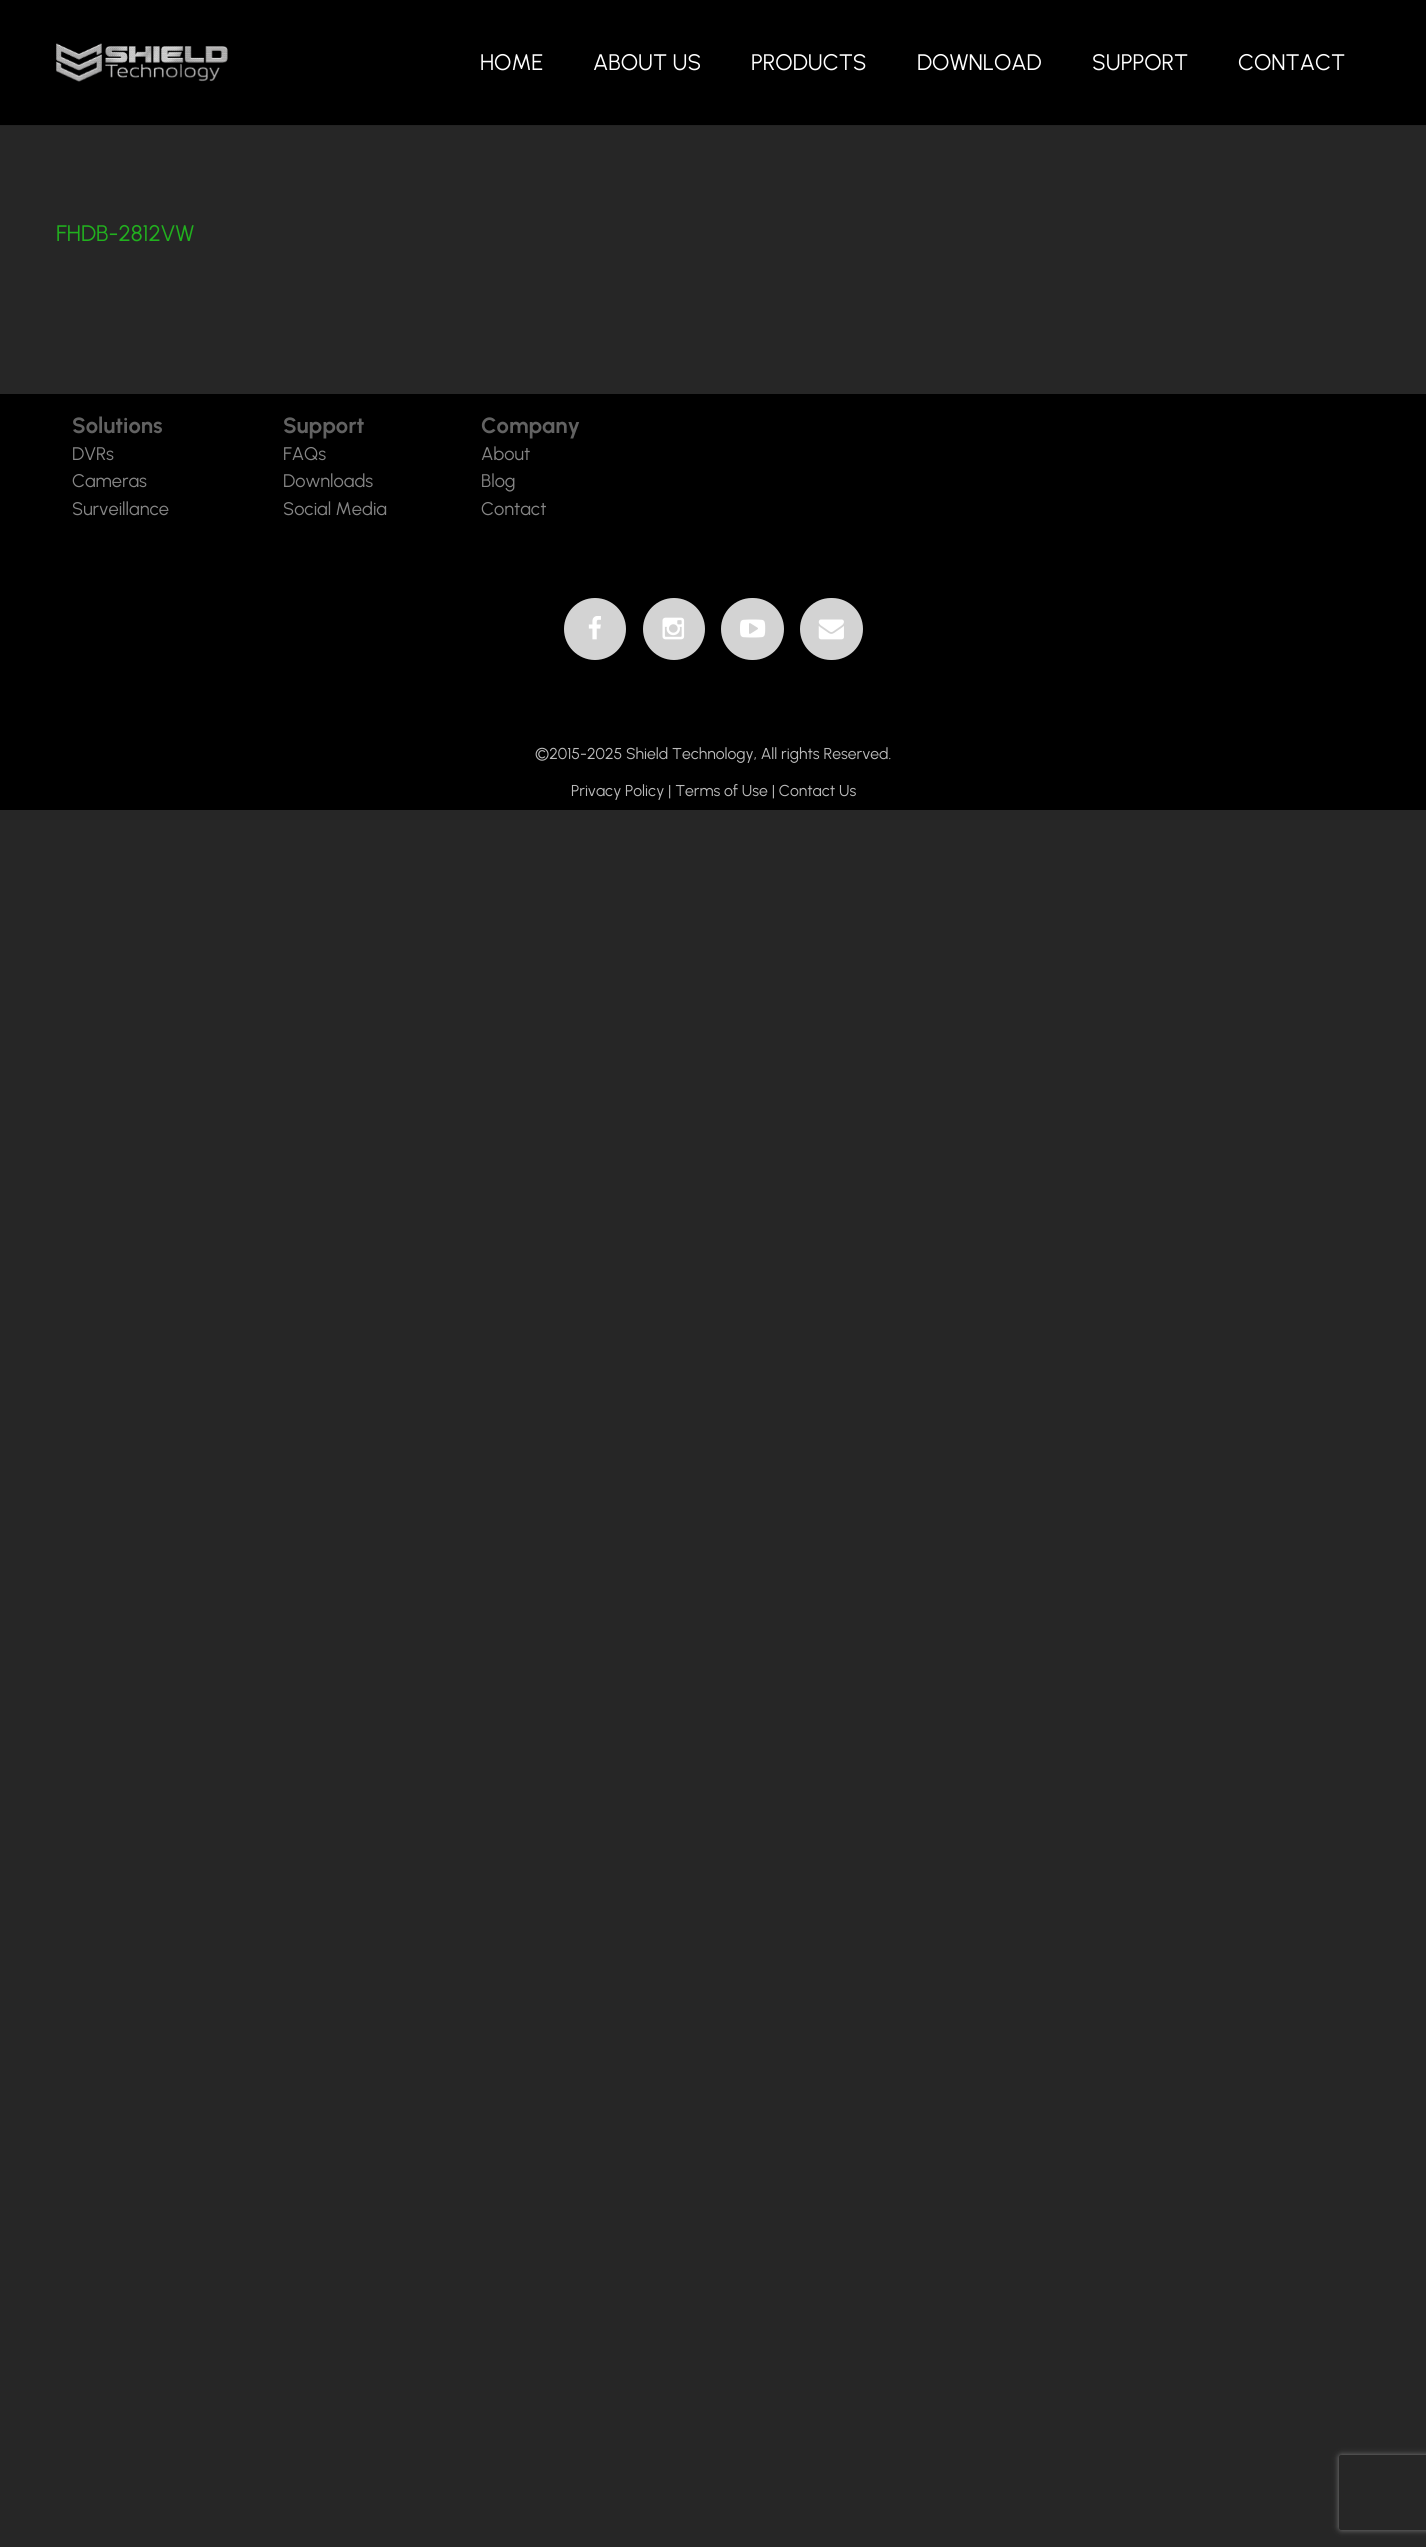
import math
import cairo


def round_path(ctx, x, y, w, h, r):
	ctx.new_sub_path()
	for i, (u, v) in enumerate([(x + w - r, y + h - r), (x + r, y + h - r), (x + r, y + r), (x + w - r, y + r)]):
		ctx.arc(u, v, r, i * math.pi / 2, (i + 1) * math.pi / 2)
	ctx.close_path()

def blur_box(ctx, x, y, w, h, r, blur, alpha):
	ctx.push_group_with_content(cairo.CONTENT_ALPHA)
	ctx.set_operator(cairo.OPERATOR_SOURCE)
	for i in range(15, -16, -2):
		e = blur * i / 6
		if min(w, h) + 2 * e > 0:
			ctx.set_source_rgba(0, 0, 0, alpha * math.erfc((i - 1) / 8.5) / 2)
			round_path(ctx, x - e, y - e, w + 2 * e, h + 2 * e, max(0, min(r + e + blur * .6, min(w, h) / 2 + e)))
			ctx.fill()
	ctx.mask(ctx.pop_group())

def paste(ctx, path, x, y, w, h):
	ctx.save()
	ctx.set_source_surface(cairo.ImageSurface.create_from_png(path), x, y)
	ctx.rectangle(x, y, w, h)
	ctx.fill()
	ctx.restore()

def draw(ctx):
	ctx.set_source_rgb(0.149, 0.149, 0.149)
	ctx.paint()
	ctx.set_source_rgb(0.137, 0.137, 0.137)
	ctx.rectangle(0, 125, 1426, 1)
	ctx.fill()
	ctx.set_source_rgb(0, 0, 0)
	ctx.rectangle(0, 0, 1426, 125)
	ctx.fill()
	paste(ctx, 'media/1.png', 56, 43, 172, 39)
	ctx.select_font_face('Urbanist')
	ctx.set_font_size(22.5)
	ctx.set_source_rgb(1, 1, 1)
	for x, y, s in [
		(480, 70, 'HOME'),
		(593, 70, 'ABOUT US'),
		(751, 70, 'PRODUCTS'),
		(917, 70, 'DOWNLOAD'),
		(1092, 70, 'SUPPORT'),
		(1238, 70, 'CONTACT'),
	]:
		ctx.move_to(x, y)
		ctx.show_text(s)
	ctx.set_source_rgb(0.129, 0.694, 0.118)
	ctx.move_to(56, 241)
	ctx.show_text('FHDB-2812VW')
	ctx.set_source_rgb(0, 0, 0)
	ctx.rectangle(0, 394, 1426, 416)
	ctx.fill()
	ctx.select_font_face('Urbanist', cairo.FONT_SLANT_NORMAL, cairo.FONT_WEIGHT_BOLD)
	ctx.set_font_size(22)
	ctx.set_source_rgb(0.384, 0.384, 0.384)
	ctx.move_to(72, 433)
	ctx.show_text('Solutions')
	ctx.select_font_face('Urbanist')
	ctx.set_font_size(18.25)
	ctx.set_source_rgb(0.525, 0.525, 0.525)
	for x, y, s in [
		(72, 460, 'DVRs'),
		(72, 487, 'Cameras'),
		(72, 515, 'Surveillance'),
	]:
		ctx.move_to(x, y)
		ctx.show_text(s)
	ctx.select_font_face('Urbanist', cairo.FONT_SLANT_NORMAL, cairo.FONT_WEIGHT_BOLD)
	ctx.set_font_size(22)
	ctx.set_source_rgb(0.384, 0.384, 0.384)
	ctx.move_to(283, 433)
	ctx.show_text('Support')
	ctx.select_font_face('Urbanist')
	ctx.set_font_size(18.25)
	ctx.set_source_rgb(0.525, 0.525, 0.525)
	for x, y, s in [
		(283, 460, 'FAQs'),
		(283, 487, 'Downloads'),
		(283, 515, 'Social Media'),
	]:
		ctx.move_to(x, y)
		ctx.show_text(s)
	ctx.select_font_face('Urbanist', cairo.FONT_SLANT_NORMAL, cairo.FONT_WEIGHT_BOLD)
	ctx.set_font_size(22)
	ctx.set_source_rgb(0.384, 0.384, 0.384)
	ctx.move_to(481, 433)
	ctx.show_text('Company')
	ctx.select_font_face('Urbanist')
	ctx.set_font_size(18.25)
	ctx.set_source_rgb(0.525, 0.525, 0.525)
	for x, y, s in [
		(481, 460, 'About'),
		(481, 487, 'Blog'),
		(481, 515, 'Contact'),
	]:
		ctx.move_to(x, y)
		ctx.show_text(s)
	ctx.set_source_rgb(0.827, 0.827, 0.827)
	ctx.new_path()
	ctx.arc(595, 629, 31, 0, 2 * math.pi)
	ctx.fill()
	paste(ctx, 'media/2.png', 588, 616, 13, 24)
	ctx.arc(674, 629, 31, 0, 2 * math.pi)
	ctx.fill()
	paste(ctx, 'media/3.png', 662, 617, 23, 23)
	round_path(ctx, 721, 598, 63, 62, 31)
	ctx.fill()
	paste(ctx, 'media/4.png', 740, 619, 26, 19)
	round_path(ctx, 800, 598, 63, 62, 31)
	ctx.fill()
	paste(ctx, 'media/5.png', 818, 619, 26, 21)
	ctx.set_font_size(15.75)
	ctx.set_source_rgb(0.733, 0.733, 0.733)
	ctx.move_to(535, 759)
	ctx.show_text('©2015-2025 Shield Technology, All rights Reserved.')
	ctx.move_to(571, 796)
	ctx.show_text('Privacy Policy | Terms of Use | Contact Us')
	ctx.save()
	ctx.set_fill_rule(cairo.FILL_RULE_EVEN_ODD)
	ctx.new_path()
	ctx.move_to(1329, 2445)
	ctx.line_to(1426, 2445)
	ctx.line_to(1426, 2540)
	ctx.line_to(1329, 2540)
	ctx.close_path()
	ctx.move_to(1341.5, 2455)
	ctx.line_to(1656.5, 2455)
	ctx.curve_to(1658, 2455, 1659, 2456, 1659, 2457.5)
	ctx.line_to(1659, 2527.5)
	ctx.curve_to(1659, 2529, 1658, 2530, 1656.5, 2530)
	ctx.line_to(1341.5, 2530)
	ctx.curve_to(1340, 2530, 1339, 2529, 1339, 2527.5)
	ctx.line_to(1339, 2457.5)
	ctx.curve_to(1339, 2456, 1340, 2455, 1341.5, 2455)
	ctx.close_path()
	ctx.clip()
	ctx.set_source_rgb(0.502, 0.502, 0.502)
	blur_box(ctx, 1339, 2455, 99, 75, 2.5, 3, 1)
	ctx.restore()


surface = cairo.ImageSurface(cairo.FORMAT_RGB24, 1426, 2547)
ctx = cairo.Context(surface)
options = cairo.FontOptions()
options.set_hint_metrics(cairo.HINT_METRICS_OFF)
options.set_hint_style(cairo.HINT_STYLE_NONE)
ctx.set_font_options(options)
ctx.set_miter_limit(4)
draw(ctx)
surface.write_to_png('image.png')
